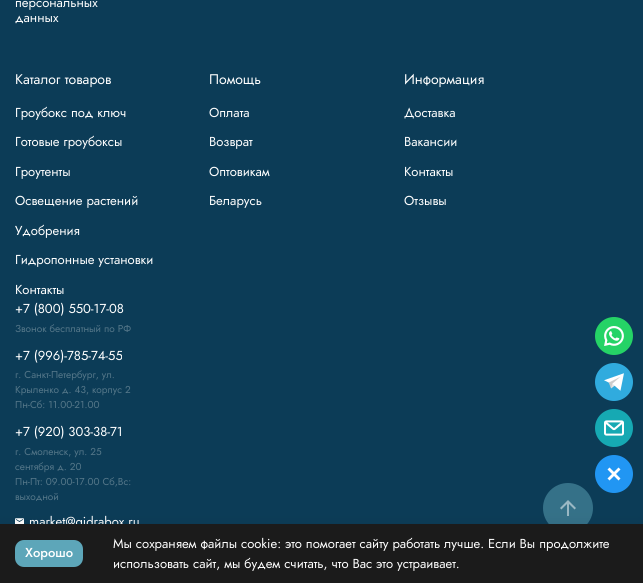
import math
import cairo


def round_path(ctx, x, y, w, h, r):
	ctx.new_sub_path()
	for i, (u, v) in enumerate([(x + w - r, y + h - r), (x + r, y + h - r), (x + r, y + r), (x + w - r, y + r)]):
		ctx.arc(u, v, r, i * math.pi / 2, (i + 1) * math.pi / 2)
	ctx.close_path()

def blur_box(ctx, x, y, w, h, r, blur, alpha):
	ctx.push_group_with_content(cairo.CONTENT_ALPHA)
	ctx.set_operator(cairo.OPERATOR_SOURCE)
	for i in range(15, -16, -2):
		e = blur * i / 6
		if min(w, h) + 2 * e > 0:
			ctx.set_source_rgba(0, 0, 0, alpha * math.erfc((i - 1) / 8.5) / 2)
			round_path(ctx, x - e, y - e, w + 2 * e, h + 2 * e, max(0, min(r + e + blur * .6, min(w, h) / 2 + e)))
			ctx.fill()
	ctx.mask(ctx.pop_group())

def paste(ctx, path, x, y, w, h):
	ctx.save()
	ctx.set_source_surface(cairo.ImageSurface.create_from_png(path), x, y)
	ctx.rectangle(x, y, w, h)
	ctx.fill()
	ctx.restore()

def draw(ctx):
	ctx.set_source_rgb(0.047, 0.235, 0.341)
	ctx.paint()
	ctx.select_font_face('Jost')
	ctx.set_font_size(13)
	ctx.set_source_rgb(1, 1, 1)
	ctx.move_to(15, 7)
	ctx.show_text('персональных')
	ctx.move_to(15, 22)
	ctx.show_text('данных')
	ctx.set_font_size(14)
	ctx.move_to(15, 84)
	ctx.show_text('Каталог товаров')
	ctx.set_font_size(13)
	for x, y, s in [
		(15, 117, 'Гроубокс под ключ'),
		(15, 146, 'Готовые гроубоксы'),
		(15, 176, 'Гроутенты'),
		(15, 205, 'Освещение растений'),
		(15, 235, 'Удобрения'),
		(15, 264, 'Гидропонные установки'),
	]:
		ctx.move_to(x, y)
		ctx.show_text(s)
	ctx.set_font_size(14)
	ctx.move_to(209, 84)
	ctx.show_text('Помощь')
	ctx.set_font_size(13)
	for x, y, s in [
		(209, 117, 'Оплата'),
		(209, 146, 'Возврат'),
		(209, 176, 'Оптовикам'),
		(209, 205, 'Беларусь'),
	]:
		ctx.move_to(x, y)
		ctx.show_text(s)
	ctx.set_font_size(14)
	ctx.move_to(404, 84)
	ctx.show_text('Информация')
	ctx.set_font_size(13)
	for x, y, s in [
		(404, 117, 'Доставка'),
		(404, 146, 'Вакансии'),
		(404, 176, 'Контакты'),
		(404, 205, 'Отзывы'),
		(15, 294, 'Контакты'),
		(15, 313, '+7 (800) 550-17-08'),
	]:
		ctx.move_to(x, y)
		ctx.show_text(s)
	ctx.set_font_size(10)
	ctx.set_source_rgb(0.333, 0.467, 0.537)
	ctx.move_to(15, 332)
	ctx.show_text('Звонок бесплатный по РФ')
	ctx.set_font_size(13)
	ctx.set_source_rgb(1, 1, 1)
	ctx.move_to(15, 360)
	ctx.show_text('+7 (996)-785-74-55')
	ctx.set_font_size(10)
	ctx.set_source_rgb(0.333, 0.467, 0.537)
	for x, y, s in [
		(15, 378, 'г. Санкт-Петербург, ул.'),
		(15, 393, 'Крыленко д. 43, корпус 2'),
		(15, 408, 'Пн-Сб: 11.00-21.00'),
	]:
		ctx.move_to(x, y)
		ctx.show_text(s)
	ctx.set_font_size(13)
	ctx.set_source_rgb(1, 1, 1)
	ctx.move_to(15, 436)
	ctx.show_text('+7 (920) 303-38-71')
	ctx.set_font_size(10)
	ctx.set_source_rgb(0.333, 0.467, 0.537)
	for x, y, s in [
		(15, 455, 'г. Смоленск, ул. 25'),
		(15, 470, 'сентября д. 20'),
		(15, 485, 'Пн-Пт: 09.00-17.00 Сб,Вс:'),
		(15, 500, 'выходной'),
	]:
		ctx.move_to(x, y)
		ctx.show_text(s)
	paste(ctx, 'media/1.png', 15, 518, 9, 6)
	ctx.set_font_size(13)
	ctx.set_source_rgb(1, 1, 1)
	ctx.move_to(29, 526)
	ctx.show_text('market@gidrabox.ru')
	ctx.set_source_rgb(0.145, 0.827, 0.4)
	ctx.new_path()
	ctx.arc(614, 336, 19, 0, 2 * math.pi)
	ctx.fill()
	paste(ctx, 'media/2.png', 604, 326, 20, 20)
	ctx.set_source_rgb(0.188, 0.671, 0.871)
	ctx.arc(614, 382, 19, 0, 2 * math.pi)
	ctx.fill()
	paste(ctx, 'media/3.png', 604, 373, 20, 18)
	ctx.set_source_rgb(0.086, 0.663, 0.702)
	ctx.arc(614, 428, 19, 0, 2 * math.pi)
	ctx.fill()
	paste(ctx, 'media/4.png', 604, 420, 20, 16)
	ctx.set_source_rgb(0.129, 0.588, 0.953)
	ctx.arc(614, 474, 19, 0, 2 * math.pi)
	ctx.fill()
	ctx.set_source_rgb(1, 1, 1)
	ctx.new_path()
	ctx.move_to(609.5, 467.5)
	ctx.line_to(620.5, 478.5)
	ctx.line_to(618.5, 480.5)
	ctx.line_to(607.5, 469.5)
	ctx.close_path()
	ctx.fill()
	ctx.new_path()
	ctx.move_to(607.5, 478.5)
	ctx.line_to(618.5, 467.5)
	ctx.line_to(620.5, 469.5)
	ctx.line_to(609.5, 480.5)
	ctx.close_path()
	ctx.fill()
	ctx.set_source_rgb(0.208, 0.443, 0.533)
	ctx.arc(568, 508, 25, 0, 2 * math.pi)
	ctx.fill()
	paste(ctx, 'media/5.png', 560, 500, 16, 16)
	ctx.set_source_rgb(0, 0, 0)
	blur_box(ctx, 0, 524, 643, 59, 0, 7.5, 0.07)
	ctx.set_source_rgb(0.106, 0.106, 0.106)
	ctx.rectangle(0, 524, 643, 59)
	ctx.fill()
	ctx.set_source_rgb(0.365, 0.651, 0.725)
	round_path(ctx, 15, 540, 68, 27, 9)
	ctx.fill()
	ctx.select_font_face('Jost Medium')
	ctx.set_source_rgb(1, 1, 1)
	ctx.move_to(25, 557)
	ctx.show_text('Хорошо')
	ctx.select_font_face('Jost')
	ctx.move_to(113, 548)
	ctx.show_text('Мы сохраняем файлы cookie: это помогает сайту работать лучше. Если Вы продолжите')
	ctx.move_to(113, 568)
	ctx.show_text('использовать сайт, мы будем считать, что Вас это устраивает.')


surface = cairo.ImageSurface(cairo.FORMAT_RGB24, 643, 583)
ctx = cairo.Context(surface)
options = cairo.FontOptions()
options.set_hint_metrics(cairo.HINT_METRICS_OFF)
options.set_hint_style(cairo.HINT_STYLE_NONE)
ctx.set_font_options(options)
ctx.set_miter_limit(4)
draw(ctx)
surface.write_to_png('image.png')
